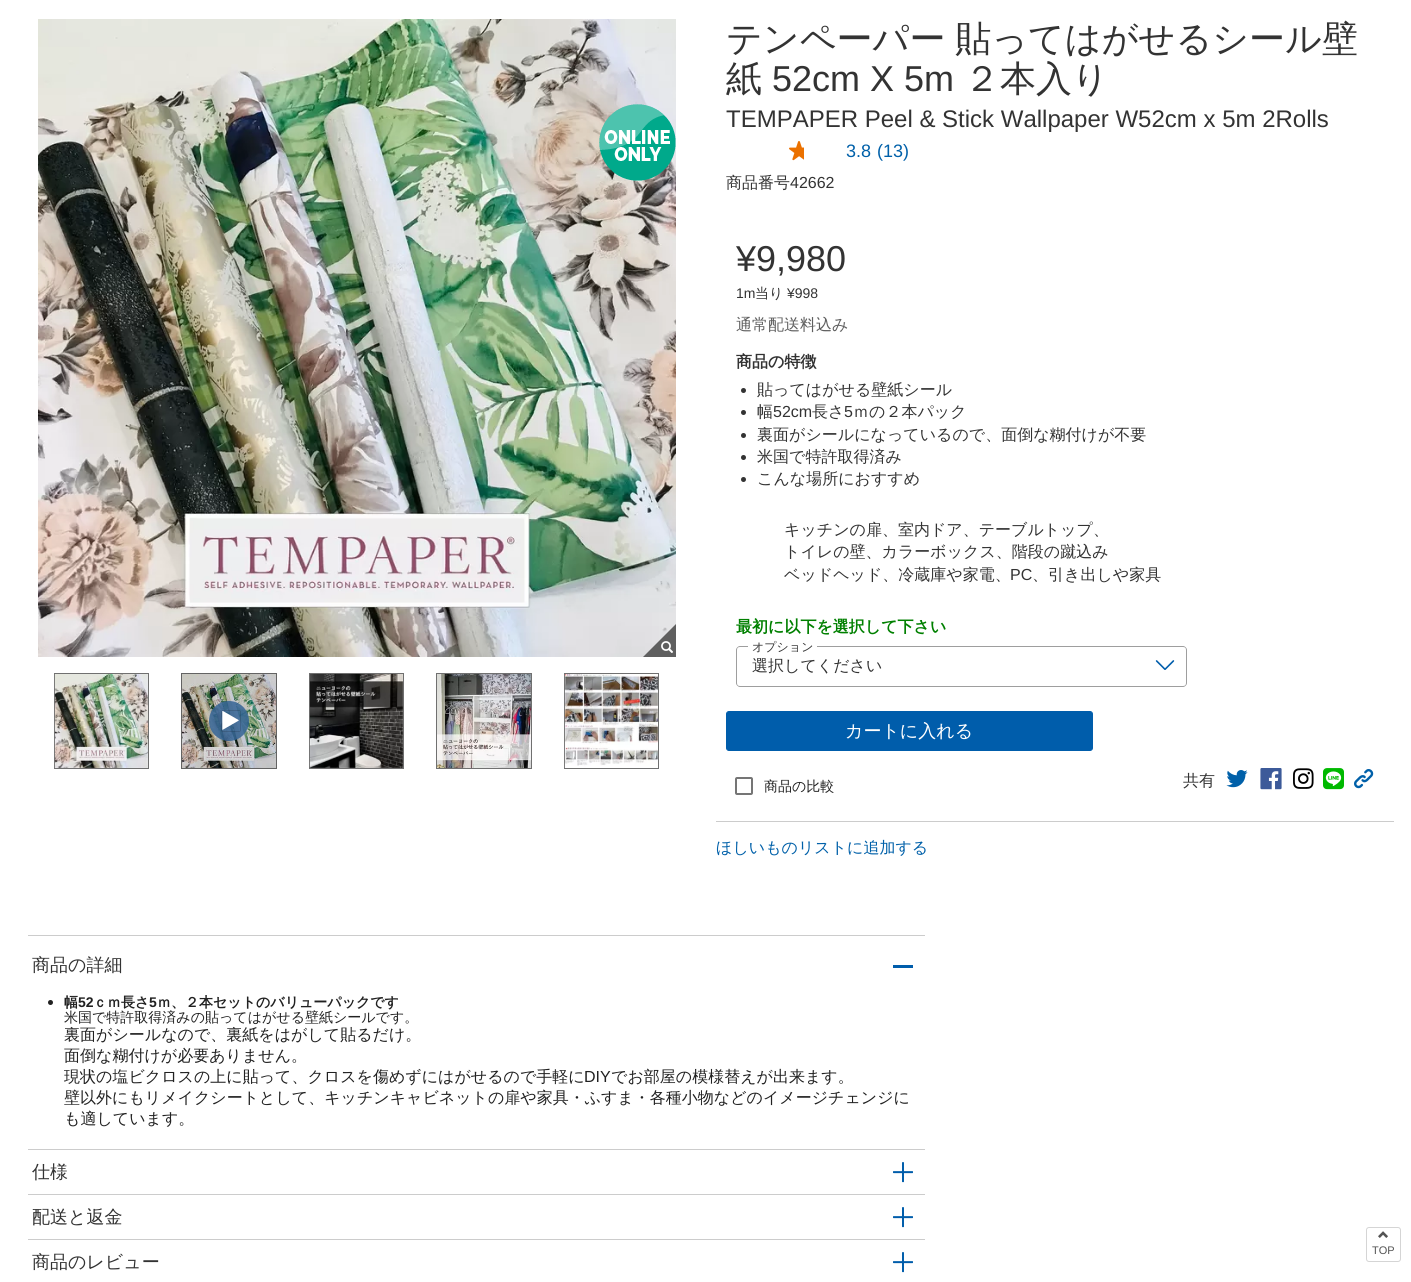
import math
import cairo


def write_spaced(ctx, x, y, s, letter, word):
	ctx.move_to(x, y)
	for ch in s:
		ctx.show_text(ch)
		ctx.rel_move_to(letter + word * (ch == ' '), 0)

def round_path(ctx, x, y, w, h, r):
	ctx.new_sub_path()
	for i, (u, v) in enumerate([(x + w - r, y + h - r), (x + r, y + h - r), (x + r, y + r), (x + w - r, y + r)]):
		ctx.arc(u, v, r, i * math.pi / 2, (i + 1) * math.pi / 2)
	ctx.close_path()

def blur_box(ctx, x, y, w, h, r, blur, alpha):
	ctx.push_group_with_content(cairo.CONTENT_ALPHA)
	ctx.set_operator(cairo.OPERATOR_SOURCE)
	for i in range(15, -16, -2):
		e = blur * i / 6
		if min(w, h) + 2 * e > 0:
			ctx.set_source_rgba(0, 0, 0, alpha * math.erfc((i - 1) / 8.5) / 2)
			round_path(ctx, x - e, y - e, w + 2 * e, h + 2 * e, max(0, min(r + e + blur * .6, min(w, h) / 2 + e)))
			ctx.fill()
	ctx.mask(ctx.pop_group())

def paste(ctx, path, x, y, w, h):
	ctx.save()
	ctx.set_source_surface(cairo.ImageSurface.create_from_png(path), x, y)
	ctx.rectangle(x, y, w, h)
	ctx.fill()
	ctx.restore()

def draw(ctx):
	ctx.set_source_rgb(1, 1, 1)
	ctx.paint()
	paste(ctx, 'media/1.png', 38, 19, 638, 638)
	ctx.set_source_rgb(0.373, 0.373, 0.373)
	ctx.new_path()
	ctx.move_to(676, 657)
	ctx.line_to(643, 657)
	ctx.line_to(676, 624)
	ctx.close_path()
	ctx.fill()
	paste(ctx, 'media/2.png', 661, 641, 12, 12)
	paste(ctx, 'media/3.png', 599, 104, 77, 77)
	ctx.rectangle(54.5, 673.5, 94, 95)
	ctx.set_source_rgb(0.439, 0.439, 0.439)
	ctx.set_line_width(1)
	ctx.stroke()
	paste(ctx, 'media/4.png', 54, 674, 94, 94)
	ctx.rectangle(181.5, 673.5, 95, 95)
	ctx.set_source_rgb(0.388, 0.388, 0.388)
	ctx.stroke()
	paste(ctx, 'media/5.png', 182, 674, 94, 94)
	ctx.set_source_rgba(0.208, 0.392, 0.588, 0.85)
	ctx.arc(229, 721, 20, 0, 2 * math.pi)
	ctx.fill()
	ctx.save()
	ctx.set_fill_rule(cairo.FILL_RULE_EVEN_ODD)
	ctx.new_path()
	ctx.move_to(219, 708)
	ctx.line_to(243, 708)
	ctx.line_to(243, 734)
	ctx.line_to(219, 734)
	ctx.close_path()
	ctx.move_to(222, 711)
	ctx.line_to(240, 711)
	ctx.line_to(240, 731)
	ctx.line_to(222, 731)
	ctx.close_path()
	ctx.clip()
	ctx.set_source_rgb(0, 0, 0)
	blur_box(ctx, 222, 711, 18, 20, 0, 0.5, 0.6)
	ctx.restore()
	paste(ctx, 'media/6.png', 222, 711, 17, 19)
	ctx.rectangle(309.5, 673.5, 94, 95)
	ctx.set_source_rgb(0.439, 0.439, 0.439)
	ctx.stroke()
	paste(ctx, 'media/7.png', 309, 674, 94, 94)
	ctx.rectangle(436.5, 673.5, 95, 95)
	ctx.stroke()
	paste(ctx, 'media/8.png', 437, 674, 94, 94)
	ctx.rectangle(564.5, 673.5, 94, 95)
	ctx.stroke()
	paste(ctx, 'media/9.png', 564, 674, 94, 94)
	ctx.select_font_face('WenQuanYi Zen Hei Medium')
	ctx.set_font_size(36)
	ctx.set_source_rgb(0.2, 0.2, 0.2)
	write_spaced(ctx, 726, 51, 'テンペーパー 貼ってはがせるシール壁', 0, -1)
	ctx.move_to(726, 91)
	ctx.show_text('紙')
	ctx.select_font_face('Liberation Sans')
	ctx.move_to(772, 91)
	ctx.show_text('52cm X 5m')
	ctx.select_font_face('WenQuanYi Zen Hei Medium')
	ctx.move_to(964, 91)
	ctx.show_text('２本入り')
	ctx.select_font_face('Liberation Sans')
	ctx.set_font_size(24)
	ctx.move_to(726, 127)
	ctx.show_text('TEMPAPER Peel & Stick Wallpaper W52cm x 5m 2Rolls')
	paste(ctx, 'media/10.png', 789, 141, 15, 20)
	ctx.set_font_size(18)
	ctx.set_source_rgb(0, 0.376, 0.663)
	ctx.move_to(846, 157)
	ctx.show_text('3.8')
	ctx.move_to(877, 157)
	ctx.show_text('(13)')
	ctx.select_font_face('WenQuanYi Zen Hei Medium')
	ctx.set_font_size(16)
	ctx.set_source_rgb(0.2, 0.2, 0.2)
	ctx.move_to(726, 188)
	ctx.show_text('商品番号')
	ctx.select_font_face('Liberation Sans')
	ctx.move_to(790, 188)
	ctx.show_text('42662')
	ctx.set_font_size(36)
	ctx.move_to(736, 271)
	ctx.show_text('¥9,980')
	ctx.set_font_size(14)
	ctx.move_to(736, 298)
	ctx.show_text('1m')
	ctx.select_font_face('WenQuanYi Zen Hei Medium')
	ctx.move_to(755, 298)
	ctx.show_text('当り')
	ctx.select_font_face('Liberation Sans')
	ctx.move_to(787, 298)
	ctx.show_text('¥998')
	ctx.select_font_face('WenQuanYi Zen Hei Medium')
	ctx.set_font_size(16)
	ctx.set_source_rgb(0.373, 0.373, 0.373)
	ctx.move_to(736, 330)
	ctx.show_text('通常配送料込み')
	ctx.select_font_face('WenQuanYi Zen Hei', cairo.FONT_SLANT_NORMAL, cairo.FONT_WEIGHT_BOLD)
	ctx.set_source_rgb(0.2, 0.2, 0.2)
	ctx.move_to(736, 367)
	ctx.show_text('商品の特徴')
	ctx.new_path()
	ctx.arc(743.5, 390.5, 2.5, 0, 2 * math.pi)
	ctx.fill()
	ctx.select_font_face('WenQuanYi Zen Hei Medium')
	ctx.move_to(757, 395)
	ctx.show_text('貼ってはがせる壁紙シール')
	ctx.new_path()
	ctx.arc(743.5, 412.5, 2.5, 0, 2 * math.pi)
	ctx.fill()
	ctx.move_to(757, 417)
	ctx.show_text('幅')
	ctx.select_font_face('Liberation Sans')
	ctx.move_to(773, 417)
	ctx.show_text('52cm')
	ctx.select_font_face('WenQuanYi Zen Hei Medium')
	ctx.move_to(812, 417)
	ctx.show_text('長さ')
	ctx.select_font_face('Liberation Sans')
	ctx.move_to(844, 417)
	ctx.show_text('5')
	ctx.select_font_face('WenQuanYi Zen Hei Medium')
	ctx.move_to(853, 417)
	ctx.show_text('ｍの２本パック')
	ctx.new_path()
	ctx.arc(743.5, 435.5, 2.5, 0, 2 * math.pi)
	ctx.fill()
	ctx.move_to(757, 440)
	ctx.show_text('裏面がシールになっているので、面倒な糊付けが不要')
	ctx.new_path()
	ctx.arc(743.5, 457.5, 2.5, 0, 2 * math.pi)
	ctx.fill()
	ctx.move_to(757, 462)
	ctx.show_text('米国で特許取得済み')
	ctx.new_path()
	ctx.arc(743.5, 479.5, 2.5, 0, 2 * math.pi)
	ctx.fill()
	for x, y, s in [
		(757, 484, 'こんな場所におすすめ'),
		(784, 535, 'キッチンの扉、室内ドア、テーブルトップ、'),
		(784, 557, 'トイレの壁、カラーボックス、階段の蹴込み'),
		(784, 580, 'ベッドヘッド、冷蔵庫や家電、'),
	]:
		ctx.move_to(x, y)
		ctx.show_text(s)
	ctx.select_font_face('Liberation Sans')
	ctx.move_to(1010, 580)
	ctx.show_text('PC')
	ctx.select_font_face('WenQuanYi Zen Hei Medium')
	ctx.move_to(1032, 580)
	ctx.show_text('、引き出しや家具')
	ctx.select_font_face('WenQuanYi Zen Hei', cairo.FONT_SLANT_NORMAL, cairo.FONT_WEIGHT_BOLD)
	ctx.set_source_rgb(0, 0.502, 0)
	ctx.move_to(736, 632)
	ctx.show_text('最初に以下を選択して下さい')
	ctx.set_source_rgb(0.62, 0.62, 0.62)
	ctx.set_fill_rule(cairo.FILL_RULE_EVEN_ODD)
	ctx.new_path()
	ctx.move_to(740, 646)
	ctx.line_to(748, 646)
	ctx.line_to(748, 687)
	ctx.line_to(740, 687)
	ctx.curve_to(738, 687, 736, 685, 736, 683)
	ctx.line_to(736, 650)
	ctx.curve_to(736, 648, 738, 646, 740, 646)
	ctx.close_path()
	ctx.move_to(740, 647)
	ctx.line_to(748, 647)
	ctx.line_to(748, 686)
	ctx.line_to(740, 686)
	ctx.curve_to(738, 686, 737, 685, 737, 683)
	ctx.line_to(737, 650)
	ctx.curve_to(737, 648, 738, 647, 740, 647)
	ctx.close_path()
	ctx.fill()
	ctx.set_fill_rule(cairo.FILL_RULE_WINDING)
	ctx.new_path()
	ctx.move_to(817, 687)
	ctx.line_to(747, 687)
	ctx.line_to(748, 686)
	ctx.line_to(817, 686)
	ctx.close_path()
	ctx.fill()
	ctx.select_font_face('WenQuanYi Zen Hei Medium')
	ctx.set_font_size(12)
	ctx.set_source_rgb(0.2, 0.2, 0.2)
	ctx.move_to(752, 651)
	ctx.show_text('オプション')
	ctx.set_font_size(16)
	ctx.move_to(752, 671)
	ctx.show_text('選択してください')
	paste(ctx, 'media/11.png', 1155, 660, 20, 10)
	ctx.set_source_rgb(0.62, 0.62, 0.62)
	ctx.set_fill_rule(cairo.FILL_RULE_EVEN_ODD)
	ctx.new_path()
	ctx.move_to(817, 646)
	ctx.line_to(1183, 646)
	ctx.curve_to(1185, 646, 1187, 648, 1187, 650)
	ctx.line_to(1187, 683)
	ctx.curve_to(1187, 685, 1185, 687, 1183, 687)
	ctx.line_to(817, 687)
	ctx.close_path()
	ctx.move_to(817, 647)
	ctx.line_to(1183, 647)
	ctx.curve_to(1185, 647, 1186, 648, 1186, 650)
	ctx.line_to(1186, 683)
	ctx.curve_to(1186, 685, 1185, 686, 1183, 686)
	ctx.line_to(817, 686)
	ctx.close_path()
	ctx.fill()
	ctx.set_source_rgb(0, 0.365, 0.671)
	round_path(ctx, 726.5, 711.5, 366, 39, 2.5)
	ctx.fill_preserve()
	ctx.stroke()
	ctx.set_font_size(18)
	ctx.set_source_rgb(1, 1, 1)
	ctx.move_to(845, 737)
	ctx.show_text('カートに入れる')
	ctx.set_font_size(14)
	ctx.set_source_rgb(0.129, 0.129, 0.129)
	ctx.move_to(764, 791)
	ctx.show_text('商品の比較')
	ctx.set_source_rgb(1, 1, 1)
	ctx.new_path()
	ctx.arc(744, 786, 20, 0, 2 * math.pi)
	ctx.fill()
	round_path(ctx, 736, 778, 16, 16, 1)
	ctx.set_source_rgb(0.459, 0.459, 0.459)
	ctx.set_line_width(2)
	ctx.stroke()
	ctx.set_font_size(16)
	ctx.set_source_rgb(0.2, 0.2, 0.2)
	ctx.move_to(1183, 786)
	ctx.show_text('共有')
	paste(ctx, 'media/12.png', 1226, 770, 22, 18)
	paste(ctx, 'media/13.png', 1260, 768, 22, 22)
	paste(ctx, 'media/14.png', 1293, 768, 21, 21)
	paste(ctx, 'media/15.png', 1323, 768, 21, 22)
	paste(ctx, 'media/16.png', 1354, 769, 20, 20)
	ctx.set_source_rgb(0.8, 0.8, 0.8)
	ctx.rectangle(716, 821, 678, 1)
	ctx.fill()
	ctx.set_source_rgb(0, 0.376, 0.663)
	ctx.move_to(716, 853)
	ctx.show_text('ほしいものリストに追加する')
	ctx.set_source_rgb(0.8, 0.8, 0.8)
	ctx.rectangle(28, 935, 897, 1)
	ctx.fill()
	ctx.set_font_size(18)
	ctx.set_source_rgb(0.2, 0.2, 0.2)
	ctx.move_to(32, 971)
	ctx.show_text('商品の詳細')
	ctx.set_source_rgb(0, 0.365, 0.671)
	ctx.rectangle(893, 965, 20, 3)
	ctx.fill()
	ctx.set_source_rgb(0.129, 0.129, 0.129)
	ctx.arc(50.5, 1002.5, 2.5, 0, 2 * math.pi)
	ctx.fill()
	ctx.select_font_face('WenQuanYi Zen Hei', cairo.FONT_SLANT_NORMAL, cairo.FONT_WEIGHT_BOLD)
	ctx.set_font_size(14)
	ctx.move_to(64, 1007)
	ctx.show_text('幅')
	ctx.select_font_face('Liberation Sans', cairo.FONT_SLANT_NORMAL, cairo.FONT_WEIGHT_BOLD)
	ctx.move_to(78, 1007)
	ctx.show_text('52')
	ctx.select_font_face('WenQuanYi Zen Hei', cairo.FONT_SLANT_NORMAL, cairo.FONT_WEIGHT_BOLD)
	ctx.move_to(93, 1007)
	ctx.show_text('ｃｍ長さ')
	ctx.select_font_face('Liberation Sans', cairo.FONT_SLANT_NORMAL, cairo.FONT_WEIGHT_BOLD)
	ctx.move_to(149, 1007)
	ctx.show_text('5')
	ctx.select_font_face('WenQuanYi Zen Hei', cairo.FONT_SLANT_NORMAL, cairo.FONT_WEIGHT_BOLD)
	ctx.move_to(157, 1007)
	ctx.show_text('ｍ、２本セットのバリューパックです')
	ctx.select_font_face('WenQuanYi Zen Hei Medium')
	ctx.move_to(64, 1022)
	ctx.show_text('米国で特許取得済みの貼ってはがせる壁紙シールです。')
	ctx.set_font_size(16)
	for x, y, s in [
		(64, 1040, '裏面がシールなので、裏紙をはがして貼るだけ。'),
		(64, 1061, '面倒な糊付けが必要ありません。'),
		(64, 1082, '現状の塩ビクロスの上に貼って、クロスを傷めずにはがせるので手軽に'),
	]:
		ctx.move_to(x, y)
		ctx.show_text(s)
	ctx.select_font_face('Liberation Sans')
	ctx.move_to(584, 1082)
	ctx.show_text('DIY')
	ctx.select_font_face('WenQuanYi Zen Hei Medium')
	for x, y, s in [
		(611, 1082, 'でお部屋の模様替えが出来ます。'),
		(64, 1103, '壁以外にもリメイクシートとして、キッチンキャビネットの扉や家具・ふすま・各種小物などのイメージチェンジに'),
		(64, 1124, 'も適しています。'),
	]:
		ctx.move_to(x, y)
		ctx.show_text(s)
	ctx.set_source_rgb(0.8, 0.8, 0.8)
	ctx.rectangle(28, 1149, 897, 1)
	ctx.fill()
	ctx.set_font_size(18)
	ctx.set_source_rgb(0.2, 0.2, 0.2)
	ctx.move_to(32, 1178)
	ctx.show_text('仕様')
	paste(ctx, 'media/17.png', 893, 1162, 20, 21)
	ctx.set_source_rgb(0.8, 0.8, 0.8)
	ctx.rectangle(28, 1194, 897, 1)
	ctx.fill()
	ctx.set_source_rgb(0.2, 0.2, 0.2)
	ctx.move_to(32, 1223)
	ctx.show_text('配送と返金')
	paste(ctx, 'media/17.png', 893, 1207, 20, 21)
	ctx.set_source_rgb(0.8, 0.8, 0.8)
	ctx.rectangle(28, 1239, 897, 1)
	ctx.fill()
	ctx.set_source_rgb(0.2, 0.2, 0.2)
	ctx.move_to(32, 1268)
	ctx.show_text('商品のレビュー')
	paste(ctx, 'media/17.png', 893, 1252, 20, 21)
	round_path(ctx, 1366.5, 1227.5, 34, 34, 2.5)
	ctx.set_source_rgb(0.835, 0.835, 0.835)
	ctx.set_line_width(1)
	ctx.stroke()
	paste(ctx, 'media/18.png', 1378, 1231, 10, 7)
	ctx.select_font_face('Liberation Sans')
	ctx.set_font_size(11)
	ctx.set_source_rgb(0.329, 0.329, 0.329)
	ctx.move_to(1372, 1254)
	ctx.show_text('TOP')


surface = cairo.ImageSurface(cairo.FORMAT_RGB24, 1411, 1282)
ctx = cairo.Context(surface)
options = cairo.FontOptions()
options.set_hint_metrics(cairo.HINT_METRICS_OFF)
options.set_hint_style(cairo.HINT_STYLE_NONE)
ctx.set_font_options(options)
ctx.set_miter_limit(4)
draw(ctx)
surface.write_to_png('image.png')
